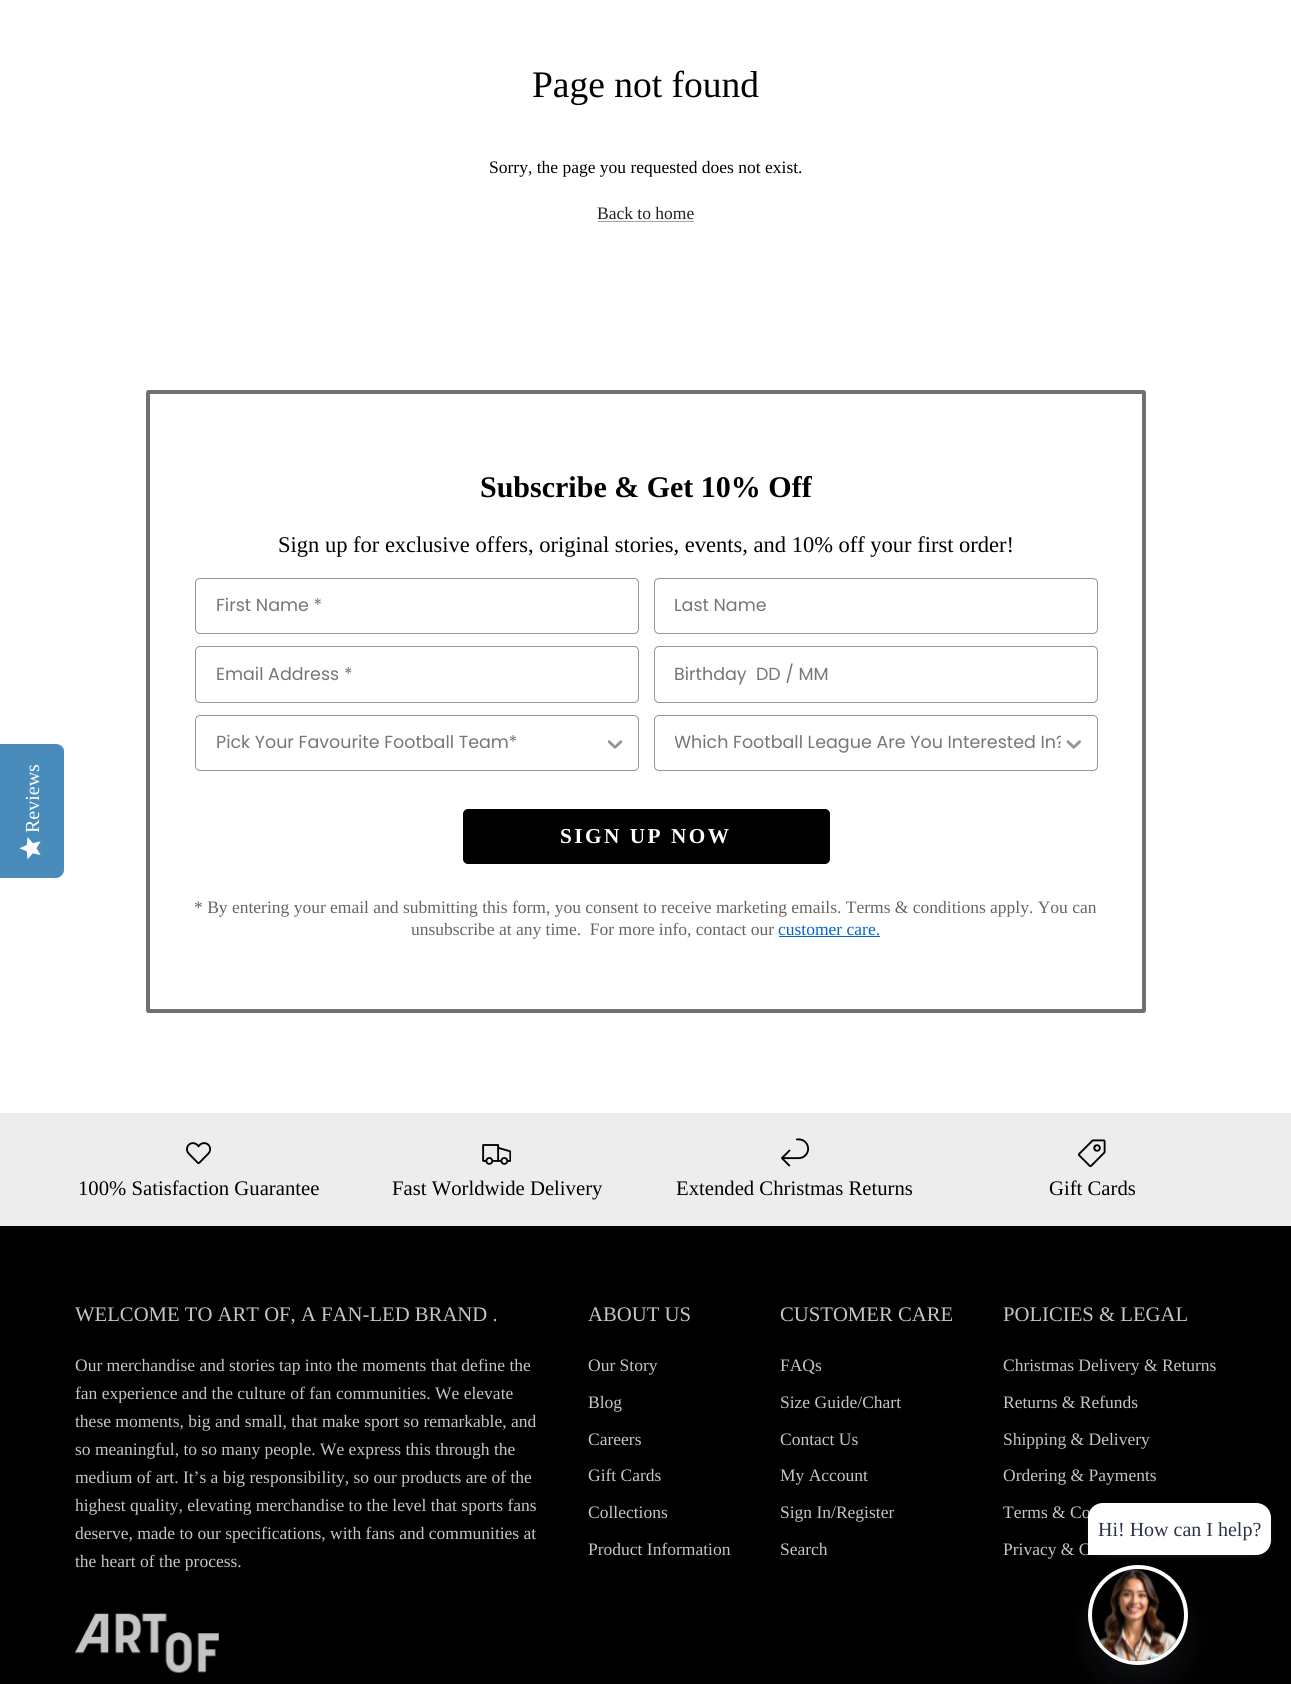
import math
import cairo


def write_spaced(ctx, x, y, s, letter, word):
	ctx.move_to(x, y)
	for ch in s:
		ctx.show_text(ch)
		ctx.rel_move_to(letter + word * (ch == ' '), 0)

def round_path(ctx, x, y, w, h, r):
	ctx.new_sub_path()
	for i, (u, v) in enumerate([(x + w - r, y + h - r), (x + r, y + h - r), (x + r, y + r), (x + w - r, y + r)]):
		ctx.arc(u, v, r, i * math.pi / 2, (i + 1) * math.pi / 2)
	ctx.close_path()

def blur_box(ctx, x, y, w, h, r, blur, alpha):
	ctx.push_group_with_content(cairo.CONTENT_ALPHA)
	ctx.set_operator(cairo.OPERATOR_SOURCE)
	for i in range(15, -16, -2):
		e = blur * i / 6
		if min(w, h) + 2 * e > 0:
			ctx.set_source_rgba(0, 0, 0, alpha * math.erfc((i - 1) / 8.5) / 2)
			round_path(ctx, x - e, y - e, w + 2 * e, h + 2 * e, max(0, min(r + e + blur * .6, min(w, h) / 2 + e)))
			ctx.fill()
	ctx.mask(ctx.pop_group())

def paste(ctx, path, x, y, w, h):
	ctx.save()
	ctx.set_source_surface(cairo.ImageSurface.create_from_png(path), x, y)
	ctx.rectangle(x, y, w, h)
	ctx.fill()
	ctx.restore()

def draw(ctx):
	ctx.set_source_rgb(1, 1, 1)
	ctx.paint()
	ctx.select_font_face('Liberation Serif')
	ctx.set_font_size(37.5)
	ctx.set_source_rgb(0, 0, 0)
	ctx.move_to(532, 97)
	ctx.show_text('Page not found')
	ctx.set_font_size(17.5)
	ctx.move_to(489, 173)
	ctx.show_text('Sorry, the page you requested does not exist.')
	ctx.set_source_rgb(0.125, 0.133, 0.137)
	ctx.move_to(597, 219)
	ctx.show_text('Back to home')
	ctx.set_source_rgb(0.651, 0.655, 0.655)
	ctx.rectangle(598, 221, 96, 1)
	ctx.fill()
	ctx.set_source_rgb(0.286, 0.549, 0.737)
	ctx.new_path()
	ctx.move_to(0, 878)
	ctx.line_to(0, 744)
	ctx.line_to(56, 744)
	ctx.curve_to(60, 744, 64, 747, 64, 751)
	ctx.line_to(64, 870)
	ctx.curve_to(64, 874, 60, 878, 56, 878)
	ctx.close_path()
	ctx.fill()
	ctx.set_font_size(20)
	ctx.set_source_rgb(1, 1, 1)
	ctx.save()
	ctx.translate(39, 833)
	ctx.rotate(-90 * math.pi / 180)
	ctx.move_to(0, 0)
	ctx.show_text('Reviews')
	ctx.restore()
	paste(ctx, 'media/1.png', 19, 837, 22, 23)
	round_path(ctx, 148, 392, 996, 619, 0.5)
	ctx.set_source_rgb(0.451, 0.435, 0.435)
	ctx.set_line_width(4)
	ctx.stroke()
	ctx.select_font_face('Liberation Serif', cairo.FONT_SLANT_NORMAL, cairo.FONT_WEIGHT_BOLD)
	ctx.set_font_size(30)
	ctx.set_source_rgb(0, 0, 0)
	ctx.move_to(480, 497)
	ctx.show_text('Subscribe & Get 10% Off')
	ctx.select_font_face('Liberation Serif')
	ctx.set_font_size(22.5)
	ctx.move_to(278, 552)
	ctx.show_text('Sign up for exclusive offers, original stories, events, and 10% off your first order!')
	round_path(ctx, 195.5, 578.5, 443, 55, 4.5)
	ctx.set_source_rgb(0.58, 0.584, 0.588)
	ctx.set_line_width(1)
	ctx.stroke()
	ctx.select_font_face('Poppins')
	ctx.set_font_size(17.5)
	ctx.set_source_rgb(0.463, 0.463, 0.463)
	ctx.move_to(216, 611)
	ctx.show_text('First Name *')
	round_path(ctx, 654.5, 578.5, 443, 55, 4.5)
	ctx.set_source_rgb(0.58, 0.584, 0.588)
	ctx.stroke()
	ctx.set_source_rgb(0.463, 0.463, 0.463)
	ctx.move_to(674, 611)
	ctx.show_text('Last Name')
	round_path(ctx, 195.5, 646.5, 443, 56, 4.5)
	ctx.set_source_rgb(0.58, 0.584, 0.588)
	ctx.stroke()
	ctx.set_source_rgb(0.463, 0.463, 0.463)
	ctx.move_to(216, 680)
	ctx.show_text('Email Address *')
	round_path(ctx, 654.5, 646.5, 443, 56, 4.5)
	ctx.set_source_rgb(0.58, 0.584, 0.588)
	ctx.stroke()
	ctx.set_source_rgb(0.463, 0.463, 0.463)
	ctx.move_to(674, 680)
	ctx.show_text('Birthday  DD / MM')
	round_path(ctx, 195.5, 715.5, 443, 55, 4.5)
	ctx.set_source_rgb(0.58, 0.584, 0.588)
	ctx.stroke()
	ctx.set_source_rgb(0.463, 0.463, 0.463)
	ctx.move_to(216, 748)
	ctx.show_text('Pick Your Favourite Football Team*')
	paste(ctx, 'media/2.png', 607, 740, 16, 9)
	round_path(ctx, 654.5, 715.5, 443, 55, 4.5)
	ctx.set_source_rgb(0.58, 0.584, 0.588)
	ctx.stroke()
	ctx.save()
	ctx.rectangle(675, 730, 386, 26)
	ctx.clip()
	ctx.set_source_rgb(0.463, 0.463, 0.463)
	ctx.move_to(674, 748)
	ctx.show_text('Which Football League Are You Interested In?')
	ctx.restore()
	paste(ctx, 'media/3.png', 1066, 740, 15, 9)
	ctx.set_source_rgb(0, 0, 0)
	round_path(ctx, 463, 809, 367, 55, 5)
	ctx.fill()
	ctx.select_font_face('Liberation Serif', cairo.FONT_SLANT_NORMAL, cairo.FONT_WEIGHT_BOLD)
	ctx.set_font_size(21.25)
	ctx.set_source_rgb(1, 1, 1)
	write_spaced(ctx, 560, 843, 'SIGN UP NOW', 2.5, 0)
	ctx.select_font_face('Liberation Serif')
	ctx.set_font_size(17.5)
	ctx.set_source_rgb(0.404, 0.392, 0.392)
	ctx.move_to(194, 913)
	ctx.show_text('* By entering your email and submitting this form, you consent to receive marketing emails. Terms & conditions apply. You can')
	ctx.move_to(411, 935)
	ctx.show_text('unsubscribe at any time.  For more info, contact our')
	ctx.set_source_rgb(0, 0.4, 0.8)
	ctx.move_to(778, 935)
	ctx.show_text('customer care.')
	ctx.rectangle(779, 936, 101, 1)
	ctx.fill()
	ctx.set_source_rgb(0.929, 0.929, 0.929)
	ctx.rectangle(0, 1113, 1291, 113)
	ctx.fill()
	paste(ctx, 'media/4.png', 186, 1142, 26, 22)
	ctx.set_font_size(20.7)
	ctx.set_source_rgb(0, 0, 0)
	ctx.move_to(78, 1195)
	ctx.show_text('100% Satisfaction Guarantee')
	paste(ctx, 'media/5.png', 482, 1144, 29, 21)
	ctx.move_to(392, 1195)
	ctx.show_text('Fast Worldwide Delivery')
	paste(ctx, 'media/6.png', 781, 1138, 29, 29)
	ctx.move_to(676, 1195)
	ctx.show_text('Extended Christmas Returns')
	paste(ctx, 'media/7.png', 1078, 1139, 28, 29)
	ctx.move_to(1049, 1195)
	ctx.show_text('Gift Cards')
	ctx.rectangle(0, 1226, 1291, 458)
	ctx.fill()
	ctx.set_source_rgb(0.776, 0.776, 0.776)
	ctx.move_to(75, 1321)
	ctx.show_text('WELCOME TO ART OF, A FAN-LED BRAND .')
	ctx.set_font_size(17.5)
	for x, y, s in [
		(75, 1371, 'Our merchandise and stories tap into the moments that define the'),
		(75, 1399, 'fan experience and the culture of fan communities. We elevate'),
		(75, 1427, 'these moments, big and small, that make sport so remarkable, and'),
		(75, 1455, 'so meaningful, to so many people. We express this through the'),
		(75, 1483, 'medium of art. It’s a big responsibility, so our products are of the'),
		(75, 1511, 'highest quality, elevating merchandise to the level that sports fans'),
		(75, 1539, 'deserve, made to our specifications, with fans and communities at'),
		(75, 1567, 'the heart of the process.'),
	]:
		ctx.move_to(x, y)
		ctx.show_text(s)
	paste(ctx, 'media/8.png', 75, 1613, 144, 60)
	ctx.set_font_size(20.7)
	ctx.move_to(588, 1321)
	ctx.show_text('ABOUT US')
	ctx.set_font_size(17.5)
	for x, y, s in [
		(588, 1371, 'Our Story'),
		(588, 1408, 'Blog'),
		(588, 1445, 'Careers'),
		(588, 1481, 'Gift Cards'),
		(588, 1518, 'Collections'),
		(588, 1555, 'Product Information'),
	]:
		ctx.move_to(x, y)
		ctx.show_text(s)
	ctx.set_font_size(20.7)
	ctx.move_to(780, 1321)
	ctx.show_text('CUSTOMER CARE')
	ctx.set_font_size(17.5)
	for x, y, s in [
		(780, 1371, 'FAQs'),
		(780, 1408, 'Size Guide/Chart'),
		(780, 1445, 'Contact Us'),
		(780, 1481, 'My Account'),
		(780, 1518, 'Sign In/Register'),
		(780, 1555, 'Search'),
	]:
		ctx.move_to(x, y)
		ctx.show_text(s)
	ctx.set_font_size(20.7)
	ctx.move_to(1003, 1321)
	ctx.show_text('POLICIES & LEGAL')
	ctx.set_font_size(17.5)
	for x, y, s in [
		(1003, 1371, 'Christmas Delivery & Returns'),
		(1003, 1408, 'Returns & Refunds'),
		(1003, 1445, 'Shipping & Delivery'),
		(1003, 1481, 'Ordering & Payments'),
		(1003, 1518, 'Terms & Co'),
		(1003, 1555, 'Privacy & C'),
	]:
		ctx.move_to(x, y)
		ctx.show_text(s)
	ctx.set_source_rgb(0.329, 0.373, 0.435)
	blur_box(ctx, 1088, 1505, 183, 53, 15, 2.5, 0.16)
	ctx.set_source_rgb(1, 1, 1)
	ctx.new_path()
	ctx.move_to(1103, 1503)
	ctx.line_to(1256, 1503)
	ctx.curve_to(1264.5, 1503, 1271, 1509.5, 1271, 1518)
	ctx.line_to(1271, 1540)
	ctx.curve_to(1271, 1548.5, 1264.5, 1555, 1256, 1555)
	ctx.line_to(1088, 1555)
	ctx.line_to(1088, 1518)
	ctx.curve_to(1088, 1509.5, 1094.5, 1503, 1103, 1503)
	ctx.close_path()
	ctx.fill()
	ctx.set_font_size(20)
	ctx.set_source_rgb(0.173, 0.2, 0.271)
	ctx.move_to(1098, 1536)
	ctx.show_text('Hi! How can I help?')
	ctx.set_source_rgb(0.329, 0.373, 0.435)
	blur_box(ctx, 1088, 1585, 100, 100, 50, 15, 0.16)
	ctx.set_source_rgb(0, 0, 0)
	ctx.arc(1138, 1615, 48, 0, 2 * math.pi)
	ctx.fill_preserve()
	ctx.set_source_rgb(1, 1, 1)
	ctx.set_line_width(4)
	ctx.stroke()
	paste(ctx, 'media/9.png', 1099, 1569, 78, 93)


surface = cairo.ImageSurface(cairo.FORMAT_RGB24, 1291, 1684)
ctx = cairo.Context(surface)
options = cairo.FontOptions()
options.set_hint_metrics(cairo.HINT_METRICS_OFF)
options.set_hint_style(cairo.HINT_STYLE_NONE)
ctx.set_font_options(options)
ctx.set_miter_limit(4)
draw(ctx)
surface.write_to_png('image.png')
